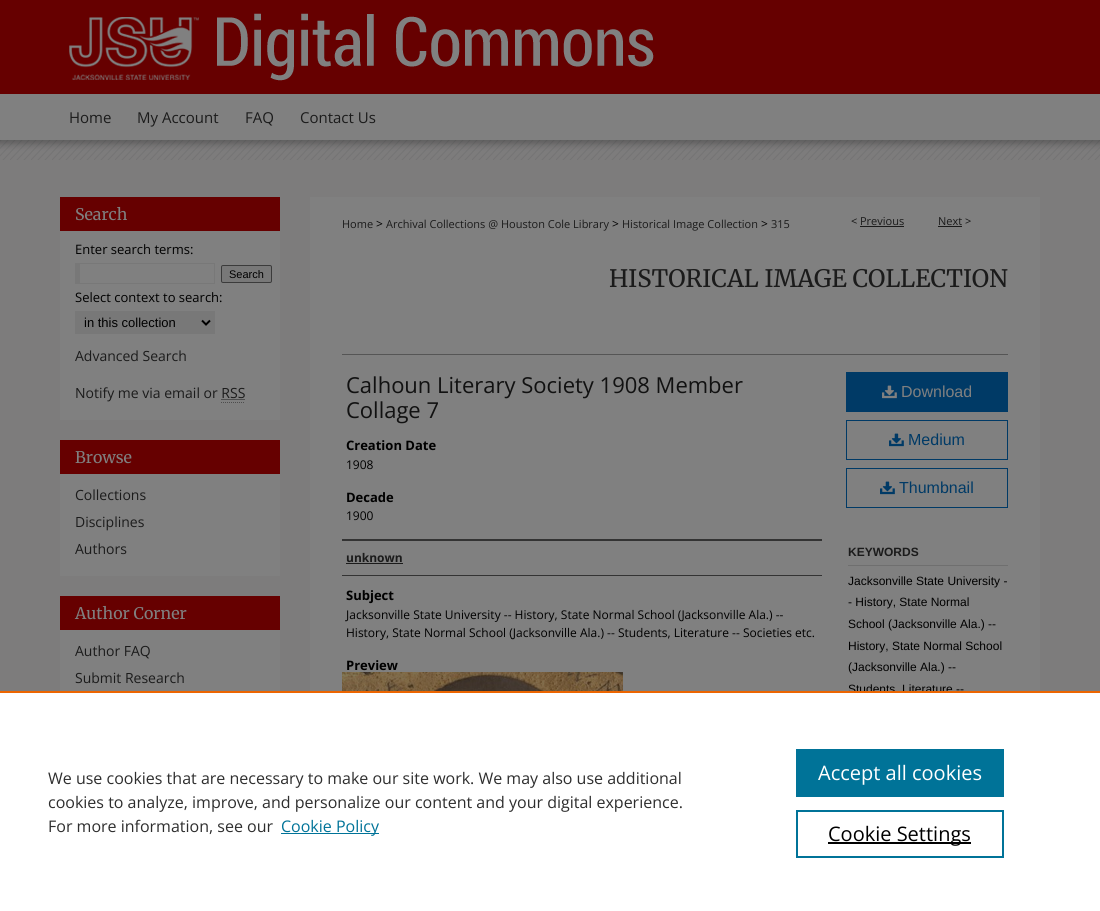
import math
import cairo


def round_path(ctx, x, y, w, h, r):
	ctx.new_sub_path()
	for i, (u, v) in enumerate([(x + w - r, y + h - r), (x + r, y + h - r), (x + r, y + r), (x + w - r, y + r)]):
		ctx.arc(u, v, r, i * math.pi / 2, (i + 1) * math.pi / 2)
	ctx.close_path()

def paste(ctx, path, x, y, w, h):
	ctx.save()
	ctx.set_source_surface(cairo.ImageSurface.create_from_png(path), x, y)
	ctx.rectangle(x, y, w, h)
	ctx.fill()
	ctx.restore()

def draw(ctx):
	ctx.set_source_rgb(0.49, 0.486, 0.486)
	ctx.paint()
	paste(ctx, 'media/1.png', 0, 0, 1100, 160)
	paste(ctx, 'media/2.png', 69, 13, 585, 68)
	ctx.select_font_face('Open Sans')
	ctx.set_font_size(15)
	ctx.set_source_rgb(0.106, 0.106, 0.106)
	for x, y, s in [
		(69, 123, 'Home'),
		(137, 123, 'My Account'),
		(245, 123, 'FAQ'),
		(300, 123, 'Contact Us'),
	]:
		ctx.move_to(x, y)
		ctx.show_text(s)
	ctx.set_source_rgb(0.502, 0.502, 0.502)
	ctx.rectangle(60, 231, 220, 460)
	ctx.fill()
	ctx.set_source_rgb(0.4, 0, 0)
	ctx.rectangle(60, 197, 220, 34)
	ctx.fill()
	ctx.select_font_face('Merriweather Light')
	ctx.set_font_size(16)
	ctx.set_source_rgb(0.502, 0.502, 0.502)
	ctx.move_to(75, 220)
	ctx.show_text('Search')
	ctx.select_font_face('Open Sans')
	ctx.set_font_size(13)
	ctx.set_source_rgb(0, 0, 0)
	ctx.move_to(75, 254)
	ctx.show_text('Enter search terms:')
	ctx.set_source_rgb(0.471, 0.471, 0.471)
	ctx.rectangle(75, 263, 140, 1)
	ctx.rectangle(214, 263, 1, 21)
	ctx.rectangle(75, 283, 140, 1)
	ctx.rectangle(75, 263, 5, 21)
	ctx.fill()
	round_path(ctx, 221.5, 265.5, 50, 17, 1.5)
	ctx.fill_preserve()
	ctx.set_source_rgb(0.231, 0.231, 0.231)
	ctx.set_line_width(1)
	ctx.stroke()
	ctx.select_font_face('Liberation Sans')
	ctx.set_font_size(11)
	ctx.set_source_rgb(0, 0, 0)
	ctx.move_to(229, 278)
	ctx.show_text('Search')
	ctx.select_font_face('Open Sans')
	ctx.set_font_size(13)
	ctx.move_to(75, 302)
	ctx.show_text('Select context to search:')
	ctx.set_source_rgb(0.471, 0.471, 0.471)
	ctx.rectangle(80, 312, 134, 21)
	ctx.rectangle(75, 311, 140, 1)
	ctx.rectangle(214, 311, 1, 23)
	ctx.rectangle(75, 333, 140, 1)
	ctx.rectangle(75, 311, 5, 23)
	ctx.fill()
	ctx.new_path()
	ctx.move_to(202, 320.5)
	ctx.line_to(206, 324.5)
	ctx.line_to(210, 320.5)
	ctx.set_source_rgb(0, 0, 0)
	ctx.set_line_width(2)
	ctx.stroke()
	ctx.select_font_face('Liberation Sans')
	ctx.move_to(84, 327)
	ctx.show_text('in this collection')
	ctx.select_font_face('Open Sans')
	ctx.set_font_size(14)
	ctx.set_source_rgb(0.106, 0.106, 0.106)
	ctx.move_to(75, 361)
	ctx.show_text('Advanced Search')
	ctx.move_to(75, 398)
	ctx.show_text('Notify me via email or RSS')
	ctx.new_path()
	ctx.move_to(221.5, 399.5)
	ctx.line_to(245.5, 399.5)
	ctx.set_line_width(1)
	ctx.set_dash([1, 1])
	ctx.stroke()
	ctx.new_path()
	ctx.move_to(221, 402.5)
	ctx.line_to(245, 402.5)
	ctx.set_source_rgb(0.302, 0.302, 0.302)
	ctx.stroke()
	ctx.set_source_rgb(0.4, 0, 0)
	ctx.rectangle(60, 440, 220, 34)
	ctx.fill()
	ctx.set_source_rgb(0.49, 0.486, 0.486)
	ctx.rectangle(60, 420, 220, 20)
	ctx.fill()
	ctx.select_font_face('Merriweather Light')
	ctx.set_font_size(16)
	ctx.set_source_rgb(0.502, 0.502, 0.502)
	ctx.move_to(75, 463)
	ctx.show_text('Browse')
	ctx.select_font_face('Open Sans')
	ctx.set_font_size(14)
	ctx.set_source_rgb(0.106, 0.106, 0.106)
	for x, y, s in [
		(75, 500, 'Collections'),
		(75, 527, 'Disciplines'),
		(75, 554, 'Authors'),
	]:
		ctx.move_to(x, y)
		ctx.show_text(s)
	ctx.set_source_rgb(0.4, 0, 0)
	ctx.rectangle(60, 596, 220, 34)
	ctx.fill()
	ctx.set_source_rgb(0.49, 0.486, 0.486)
	ctx.rectangle(60, 576, 220, 20)
	ctx.fill()
	ctx.select_font_face('Merriweather Light')
	ctx.set_font_size(16)
	ctx.set_source_rgb(0.502, 0.502, 0.502)
	ctx.move_to(75, 619)
	ctx.show_text('Author Corner')
	ctx.select_font_face('Open Sans')
	ctx.set_font_size(14)
	ctx.set_source_rgb(0.106, 0.106, 0.106)
	ctx.move_to(75, 656)
	ctx.show_text('Author FAQ')
	ctx.move_to(75, 683)
	ctx.show_text('Submit Research')
	ctx.set_source_rgb(0.502, 0.502, 0.502)
	ctx.rectangle(310, 197, 730, 494)
	ctx.fill()
	ctx.set_font_size(11)
	ctx.set_source_rgb(0.106, 0.106, 0.106)
	ctx.move_to(342, 228)
	ctx.show_text('Home')
	ctx.set_font_size(12)
	ctx.set_source_rgb(0, 0, 0)
	ctx.move_to(376, 228)
	ctx.show_text('>')
	ctx.set_font_size(11)
	ctx.set_source_rgb(0.106, 0.106, 0.106)
	ctx.move_to(386, 228)
	ctx.show_text('Archival Collections @ Houston Cole Library')
	ctx.set_font_size(12)
	ctx.set_source_rgb(0, 0, 0)
	ctx.move_to(612, 228)
	ctx.show_text('>')
	ctx.set_font_size(11)
	ctx.set_source_rgb(0.106, 0.106, 0.106)
	ctx.move_to(622, 228)
	ctx.show_text('Historical Image Collection')
	ctx.set_font_size(12)
	ctx.set_source_rgb(0, 0, 0)
	ctx.move_to(761, 228)
	ctx.show_text('>')
	ctx.set_font_size(11)
	ctx.set_source_rgb(0.106, 0.106, 0.106)
	ctx.move_to(771, 228)
	ctx.show_text('315')
	ctx.set_source_rgb(0.067, 0.067, 0.067)
	ctx.move_to(851, 225)
	ctx.show_text('<')
	ctx.set_source_rgb(0.106, 0.106, 0.106)
	ctx.move_to(860, 225)
	ctx.show_text('Previous')
	ctx.rectangle(860, 226, 44, 1)
	ctx.fill()
	ctx.move_to(938, 225)
	ctx.show_text('Next')
	ctx.rectangle(938, 226, 24, 1)
	ctx.fill()
	ctx.set_source_rgb(0.067, 0.067, 0.067)
	ctx.move_to(965, 225)
	ctx.show_text('>')
	ctx.select_font_face('Merriweather Light')
	ctx.set_font_size(24)
	ctx.set_source_rgb(0.106, 0.106, 0.106)
	ctx.move_to(609, 287)
	ctx.show_text('HISTORICAL IMAGE COLLECTION')
	ctx.set_source_rgb(0.333, 0.333, 0.333)
	ctx.rectangle(342, 354, 666, 1)
	ctx.fill()
	ctx.select_font_face('Open Sans')
	ctx.set_font_size(22)
	ctx.set_source_rgb(0.067, 0.067, 0.067)
	ctx.move_to(346, 393)
	ctx.show_text('Calhoun Literary Society 1908 Member')
	ctx.move_to(346, 418)
	ctx.show_text('Collage 7')
	ctx.select_font_face('Open Sans', cairo.FONT_SLANT_NORMAL, cairo.FONT_WEIGHT_BOLD)
	ctx.set_font_size(13)
	ctx.set_source_rgb(0, 0, 0)
	ctx.move_to(346, 450)
	ctx.show_text('Creation Date')
	ctx.select_font_face('Open Sans')
	ctx.set_font_size(12)
	ctx.move_to(346, 469)
	ctx.show_text('1908')
	ctx.select_font_face('Open Sans', cairo.FONT_SLANT_NORMAL, cairo.FONT_WEIGHT_BOLD)
	ctx.set_font_size(13)
	ctx.move_to(346, 502)
	ctx.show_text('Decade')
	ctx.select_font_face('Open Sans')
	ctx.set_font_size(12)
	ctx.move_to(346, 520)
	ctx.show_text('1900')
	ctx.set_source_rgb(0.2, 0.2, 0.2)
	ctx.rectangle(342, 539, 480, 2)
	ctx.fill()
	ctx.rectangle(342, 575, 480, 1)
	ctx.fill()
	ctx.select_font_face('Open Sans', cairo.FONT_SLANT_NORMAL, cairo.FONT_WEIGHT_BOLD)
	ctx.set_source_rgb(0.106, 0.106, 0.106)
	ctx.move_to(346, 562)
	ctx.show_text('unknown')
	ctx.rectangle(346, 563, 57, 1)
	ctx.fill()
	ctx.set_font_size(13)
	ctx.set_source_rgb(0, 0, 0)
	ctx.move_to(346, 600)
	ctx.show_text('Subject')
	ctx.select_font_face('Open Sans')
	ctx.set_font_size(12)
	ctx.move_to(346, 619)
	ctx.show_text('Jacksonville State University -- History, State Normal School (Jacksonville Ala.) --')
	ctx.move_to(346, 637)
	ctx.show_text('History, State Normal School (Jacksonville Ala.) -- Students, Literature -- Societies etc.')
	ctx.select_font_face('Open Sans', cairo.FONT_SLANT_NORMAL, cairo.FONT_WEIGHT_BOLD)
	ctx.set_font_size(13)
	ctx.move_to(346, 670)
	ctx.show_text('Preview')
	paste(ctx, 'media/3.png', 342, 672, 281, 19)
	ctx.set_source_rgb(0, 0.227, 0.4)
	ctx.rectangle(846, 372, 162, 40)
	ctx.fill()
	paste(ctx, 'media/4.png', 882, 385, 15, 14)
	ctx.select_font_face('Liberation Sans')
	ctx.set_font_size(16)
	ctx.set_source_rgb(0.502, 0.502, 0.502)
	ctx.move_to(901, 397)
	ctx.show_text('Download')
	ctx.rectangle(846.5, 420.5, 161, 39)
	ctx.set_source_rgb(0, 0.227, 0.4)
	ctx.set_dash([])
	ctx.stroke()
	paste(ctx, 'media/5.png', 889, 433, 15, 14)
	ctx.move_to(908, 445)
	ctx.show_text('Medium')
	ctx.rectangle(846.5, 468.5, 161, 39)
	ctx.stroke()
	paste(ctx, 'media/5.png', 880, 481, 15, 14)
	ctx.move_to(899, 493)
	ctx.show_text('Thumbnail')
	ctx.set_source_rgb(0.435, 0.435, 0.435)
	ctx.rectangle(848, 565, 160, 1)
	ctx.fill()
	ctx.select_font_face('Liberation Sans', cairo.FONT_SLANT_NORMAL, cairo.FONT_WEIGHT_BOLD)
	ctx.set_font_size(12)
	ctx.set_source_rgb(0.106, 0.106, 0.106)
	ctx.move_to(848, 556)
	ctx.show_text('KEYWORDS')
	ctx.select_font_face('Liberation Sans')
	ctx.set_source_rgb(0, 0, 0)
	for x, y, s in [
		(848, 585, 'Jacksonville State University -'),
		(848, 606, '- History, State Normal'),
		(848, 628, 'School (Jacksonville Ala.) --'),
		(848, 650, 'History, State Normal School'),
		(848, 671, '(Jacksonville Ala.) --'),
		(848, 693, 'Students, Literature --'),
	]:
		ctx.move_to(x, y)
		ctx.show_text(s)
	ctx.set_source_rgb(1, 1, 1)
	ctx.rectangle(0, 693, 1100, 218)
	ctx.fill()
	ctx.set_source_rgb(0.922, 0.396, 0)
	ctx.rectangle(0, 691, 1100, 2)
	ctx.fill()
	ctx.select_font_face('Open Sans')
	ctx.set_font_size(16)
	ctx.set_source_rgb(0.18, 0.18, 0.18)
	for x, y, s in [
		(48, 784, 'We use cookies that are necessary to make our site work. We may also use additional'),
		(48, 808, 'cookies to analyze, improve, and personalize our content and your digital experience.'),
		(48, 832, 'For more information, see our'),
	]:
		ctx.move_to(x, y)
		ctx.show_text(s)
	ctx.set_source_rgb(0, 0.451, 0.596)
	ctx.rectangle(281, 833, 98, 1)
	ctx.fill()
	ctx.move_to(281, 832)
	ctx.show_text('Cookie Policy')
	ctx.rectangle(796, 749, 208, 48)
	ctx.fill()
	ctx.set_font_size(20)
	ctx.set_source_rgb(1, 1, 1)
	ctx.move_to(818, 780)
	ctx.show_text('Accept all cookies')
	ctx.rectangle(797, 811, 206, 46)
	ctx.set_source_rgb(0, 0.451, 0.596)
	ctx.set_line_width(2)
	ctx.stroke()
	ctx.set_source_rgb(0, 0, 0)
	ctx.rectangle(828, 842, 143, 2)
	ctx.fill()
	ctx.move_to(828, 841)
	ctx.show_text('Cookie Settings')


surface = cairo.ImageSurface(cairo.FORMAT_RGB24, 1100, 911)
ctx = cairo.Context(surface)
options = cairo.FontOptions()
options.set_hint_metrics(cairo.HINT_METRICS_OFF)
options.set_hint_style(cairo.HINT_STYLE_NONE)
ctx.set_font_options(options)
ctx.set_miter_limit(4)
draw(ctx)
surface.write_to_png('image.png')
